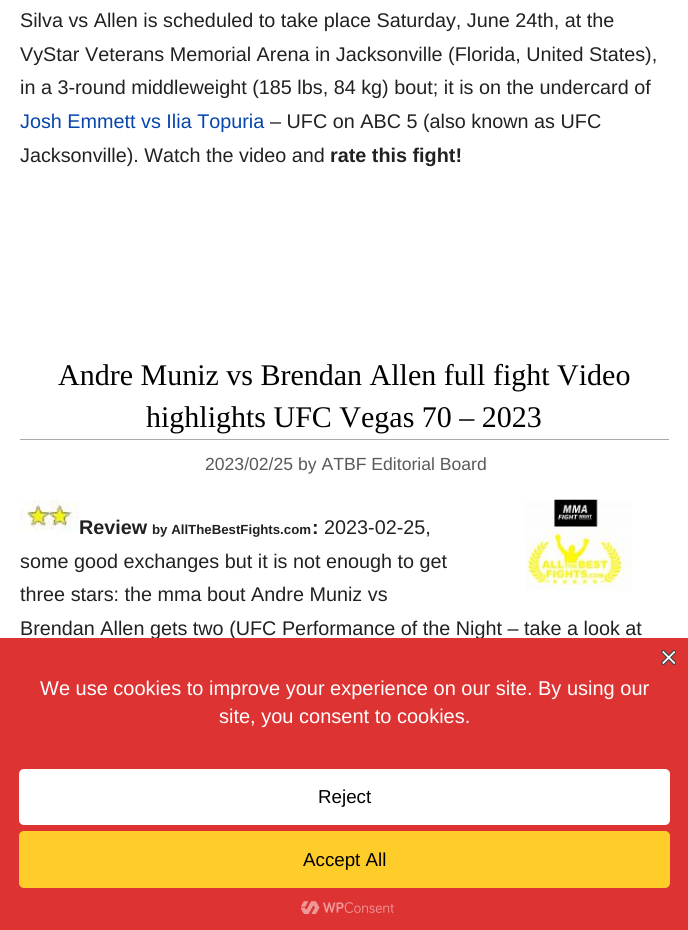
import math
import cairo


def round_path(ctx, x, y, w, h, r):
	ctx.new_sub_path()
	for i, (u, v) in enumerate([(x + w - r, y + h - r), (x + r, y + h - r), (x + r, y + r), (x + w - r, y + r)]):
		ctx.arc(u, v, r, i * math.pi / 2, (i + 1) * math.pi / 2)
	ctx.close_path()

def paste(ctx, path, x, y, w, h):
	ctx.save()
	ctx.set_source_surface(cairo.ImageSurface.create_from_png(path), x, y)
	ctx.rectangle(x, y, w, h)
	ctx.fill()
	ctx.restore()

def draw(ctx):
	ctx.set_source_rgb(1, 1, 1)
	ctx.paint()
	ctx.select_font_face('Liberation Sans')
	ctx.set_font_size(19.8)
	ctx.set_source_rgb(0.125, 0.129, 0.133)
	for x, y, s in [
		(20, 27, 'Silva vs Allen is scheduled to take place Saturday, June 24th, at the'),
		(20, 61, 'VyStar Veterans Memorial Arena in Jacksonville (Florida, United States),'),
		(20, 94, 'in a 3-round middleweight (185 lbs, 84 kg) bout; it is on the undercard of'),
	]:
		ctx.move_to(x, y)
		ctx.show_text(s)
	ctx.set_source_rgb(0.024, 0.271, 0.678)
	ctx.move_to(20, 128)
	ctx.show_text('Josh Emmett vs Ilia Topuria')
	ctx.set_source_rgb(0.125, 0.129, 0.133)
	ctx.move_to(270, 128)
	ctx.show_text('– UFC on ABC 5 (also known as UFC')
	ctx.move_to(20, 162)
	ctx.show_text('Jacksonville). Watch the video and')
	ctx.select_font_face('Liberation Sans', cairo.FONT_SLANT_NORMAL, cairo.FONT_WEIGHT_BOLD)
	ctx.move_to(330, 162)
	ctx.show_text('rate this fight!')
	ctx.set_source_rgb(0.667, 0.667, 0.667)
	ctx.rectangle(20, 439, 649, 1)
	ctx.fill()
	ctx.select_font_face('Liberation Serif')
	ctx.set_font_size(30)
	ctx.set_source_rgb(0, 0, 0)
	ctx.move_to(58, 385)
	ctx.show_text('Andre Muniz vs Brendan Allen full fight Video')
	ctx.move_to(146, 427)
	ctx.show_text('highlights UFC Vegas 70 – 2023')
	ctx.select_font_face('Liberation Sans')
	ctx.set_font_size(17.6)
	ctx.set_source_rgb(0.349, 0.349, 0.349)
	ctx.move_to(205, 470)
	ctx.show_text('2023/02/25 by ATBF Editorial Board')
	paste(ctx, 'media/1.png', 525, 499, 107, 92)
	paste(ctx, 'media/2.png', 20, 499, 59, 35)
	ctx.select_font_face('Liberation Sans', cairo.FONT_SLANT_NORMAL, cairo.FONT_WEIGHT_BOLD)
	ctx.set_font_size(19.8)
	ctx.set_source_rgb(0.125, 0.129, 0.133)
	ctx.move_to(79, 534)
	ctx.show_text('Review')
	ctx.set_font_size(13.25)
	ctx.move_to(152, 534)
	ctx.show_text('by AllTheBestFights.com')
	ctx.set_font_size(19.8)
	ctx.move_to(312, 534)
	ctx.show_text(':')
	ctx.select_font_face('Liberation Sans')
	for x, y, s in [
		(324, 534, '2023-02-25,'),
		(20, 568, 'some good exchanges but it is not enough to get'),
		(20, 601, 'three stars: the mma bout Andre Muniz vs'),
		(20, 635, 'Brendan Allen gets two (UFC Performance of the Night – take a look at'),
	]:
		ctx.move_to(x, y)
		ctx.show_text(s)
	ctx.set_source_rgb(0.867, 0.2, 0.2)
	ctx.rectangle(0, 638, 688, 292)
	ctx.fill()
	paste(ctx, 'media/3.png', 661, 650, 15, 15)
	ctx.set_font_size(20)
	ctx.set_source_rgb(1, 1, 1)
	ctx.move_to(40, 695)
	ctx.show_text('We use cookies to improve your experience on our site. By using our')
	ctx.move_to(219, 723)
	ctx.show_text('site, you consent to cookies.')
	round_path(ctx, 19, 769, 651, 56, 5)
	ctx.fill()
	ctx.set_font_size(18.75)
	ctx.set_source_rgb(0, 0, 0)
	ctx.move_to(318, 803)
	ctx.show_text('Reject')
	ctx.set_source_rgb(1, 0.804, 0.165)
	round_path(ctx, 19, 831, 651, 57, 5)
	ctx.fill()
	ctx.set_source_rgb(0, 0, 0)
	ctx.move_to(303, 866)
	ctx.show_text('Accept All')
	paste(ctx, 'media/4.png', 301, 901, 93, 13)


surface = cairo.ImageSurface(cairo.FORMAT_RGB24, 688, 930)
ctx = cairo.Context(surface)
options = cairo.FontOptions()
options.set_hint_metrics(cairo.HINT_METRICS_OFF)
options.set_hint_style(cairo.HINT_STYLE_NONE)
ctx.set_font_options(options)
ctx.set_miter_limit(4)
draw(ctx)
surface.write_to_png('image.png')
